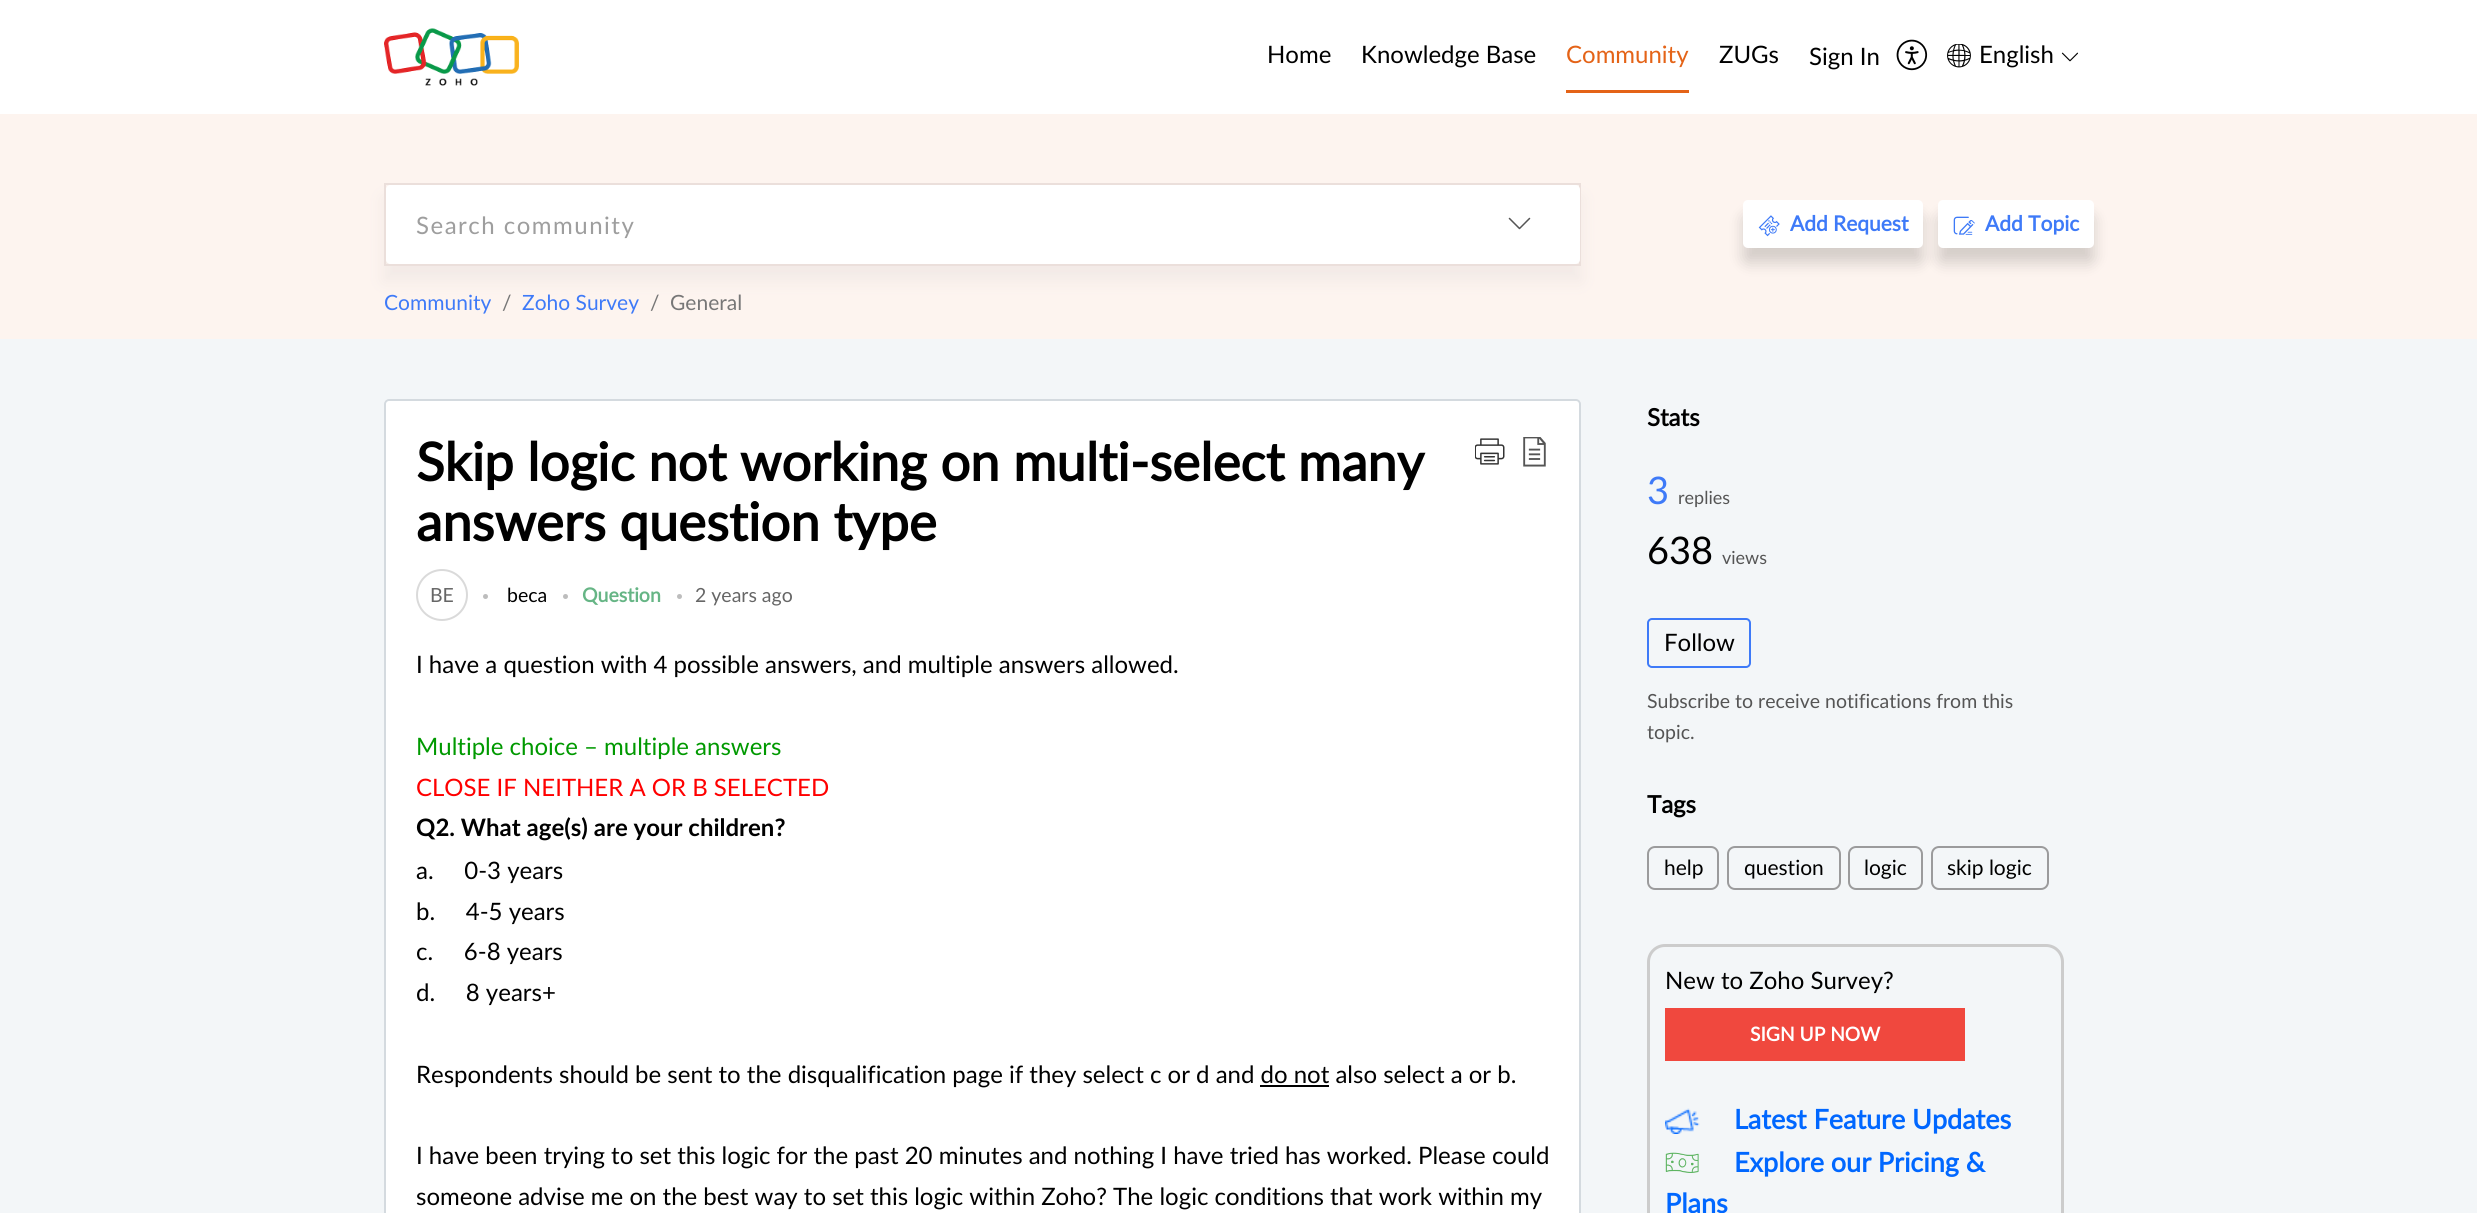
import math
import cairo


def write_spaced(ctx, x, y, s, letter, word):
	ctx.move_to(x, y)
	for ch in s:
		ctx.show_text(ch)
		ctx.rel_move_to(letter + word * (ch == ' '), 0)

def round_path(ctx, x, y, w, h, r):
	ctx.new_sub_path()
	for i, (u, v) in enumerate([(x + w - r, y + h - r), (x + r, y + h - r), (x + r, y + r), (x + w - r, y + r)]):
		ctx.arc(u, v, r, i * math.pi / 2, (i + 1) * math.pi / 2)
	ctx.close_path()

def blur_box(ctx, x, y, w, h, r, blur, alpha):
	ctx.push_group_with_content(cairo.CONTENT_ALPHA)
	ctx.set_operator(cairo.OPERATOR_SOURCE)
	for i in range(15, -16, -2):
		e = blur * i / 6
		if min(w, h) + 2 * e > 0:
			ctx.set_source_rgba(0, 0, 0, alpha * math.erfc((i - 1) / 8.5) / 2)
			round_path(ctx, x - e, y - e, w + 2 * e, h + 2 * e, max(0, min(r + e + blur * .6, min(w, h) / 2 + e)))
			ctx.fill()
	ctx.mask(ctx.pop_group())

def paste(ctx, path, x, y, w, h):
	ctx.save()
	ctx.set_source_surface(cairo.ImageSurface.create_from_png(path), x, y)
	ctx.rectangle(x, y, w, h)
	ctx.fill()
	ctx.restore()

def draw(ctx):
	ctx.set_source_rgb(0.953, 0.961, 0.969)
	ctx.paint()
	ctx.set_source_rgb(1, 1, 1)
	ctx.rectangle(0, 0, 2477, 114)
	ctx.fill()
	paste(ctx, 'media/1.png', 384, 28, 135, 58)
	ctx.select_font_face('Lato')
	ctx.set_font_size(24)
	ctx.set_source_rgb(0, 0, 0)
	ctx.move_to(1267, 63)
	ctx.show_text('Home')
	ctx.move_to(1361, 63)
	ctx.show_text('Knowledge Base')
	ctx.set_source_rgb(0.894, 0.388, 0.09)
	ctx.rectangle(1566, 90, 123, 3)
	ctx.fill()
	ctx.move_to(1566, 63)
	ctx.show_text('Community')
	ctx.set_source_rgb(0, 0, 0)
	ctx.move_to(1719, 63)
	ctx.show_text('ZUGs')
	ctx.move_to(1809, 65)
	ctx.show_text('Sign In')
	paste(ctx, 'media/2.png', 1896, 39, 32, 32)
	paste(ctx, 'media/3.png', 1947, 44, 24, 24)
	ctx.move_to(1979, 63)
	ctx.show_text('English')
	paste(ctx, 'media/4.png', 2061, 52, 17, 10)
	ctx.set_source_rgb(0.992, 0.957, 0.937)
	ctx.rectangle(0, 114, 2477, 225)
	ctx.fill()
	ctx.set_source_rgb(0.941, 0.91, 0.898)
	blur_box(ctx, 384, 198, 1197, 83, 0, 7.5, 0.84)
	ctx.rectangle(385, 184, 1195, 81)
	ctx.set_source_rgb(0.918, 0.875, 0.859)
	ctx.stroke()
	ctx.set_source_rgb(1, 1, 1)
	round_path(ctx, 386, 185, 1194, 79, 5)
	ctx.fill()
	round_path(ctx, 386, 185, 1074, 79, 5)
	ctx.fill()
	ctx.set_source_rgb(0.62, 0.62, 0.62)
	write_spaced(ctx, 416, 234, 'Search community', 1.5, 0)
	ctx.set_source_rgba(1, 1, 1, 0.5)
	ctx.new_path()
	ctx.move_to(1460, 185)
	ctx.line_to(1575, 185)
	ctx.curve_to(1578, 185, 1580, 187, 1580, 190)
	ctx.line_to(1580, 259)
	ctx.curve_to(1580, 262, 1578, 264, 1575, 264)
	ctx.line_to(1460, 264)
	ctx.close_path()
	ctx.fill()
	paste(ctx, 'media/5.png', 1508, 217, 23, 13)
	ctx.set_source_rgb(0, 0, 0)
	blur_box(ctx, 1743, 215, 180, 48, 5, 7.5, 0.16)
	ctx.set_source_rgb(1, 1, 1)
	round_path(ctx, 1743, 200, 180, 48, 5)
	ctx.fill()
	paste(ctx, 'media/6.png', 1758, 215, 22, 22)
	ctx.select_font_face('Lato', cairo.FONT_SLANT_NORMAL, cairo.FONT_WEIGHT_BOLD)
	ctx.set_font_size(21)
	ctx.set_source_rgb(0.243, 0.478, 0.969)
	ctx.move_to(1790, 231)
	ctx.show_text('Add Request')
	ctx.set_source_rgb(0, 0, 0)
	blur_box(ctx, 1938, 215, 156, 48, 5, 7.5, 0.16)
	ctx.set_source_rgb(1, 1, 1)
	round_path(ctx, 1938, 200, 156, 48, 5)
	ctx.fill()
	paste(ctx, 'media/7.png', 1953, 216, 22, 19)
	ctx.set_source_rgb(0.243, 0.478, 0.969)
	ctx.move_to(1985, 231)
	ctx.show_text('Add Topic')
	ctx.select_font_face('Lato')
	ctx.move_to(384, 310)
	ctx.show_text('Community')
	ctx.set_source_rgb(0.467, 0.467, 0.467)
	ctx.move_to(502, 310)
	ctx.show_text('/')
	ctx.set_source_rgb(0.243, 0.478, 0.969)
	ctx.move_to(522, 310)
	ctx.show_text('Zoho Survey')
	ctx.set_source_rgb(0.467, 0.467, 0.467)
	ctx.move_to(650, 310)
	ctx.show_text('/')
	ctx.move_to(670, 310)
	ctx.show_text('General')
	ctx.set_source_rgb(1, 1, 1)
	ctx.new_path()
	ctx.move_to(389, 399)
	ctx.line_to(1576, 399)
	ctx.curve_to(1579, 399, 1581, 401, 1581, 404)
	ctx.line_to(1581, 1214)
	ctx.line_to(384, 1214)
	ctx.line_to(384, 404)
	ctx.curve_to(384, 401, 386, 399, 389, 399)
	ctx.close_path()
	ctx.fill()
	round_path(ctx, 385, 400, 1195, 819, 4)
	ctx.set_source_rgb(0.831, 0.855, 0.875)
	ctx.stroke()
	ctx.select_font_face('Lato', cairo.FONT_SLANT_NORMAL, cairo.FONT_WEIGHT_BOLD)
	ctx.set_font_size(52.75)
	ctx.set_source_rgb(0, 0, 0)
	ctx.move_to(416, 481)
	ctx.show_text('Skip logic not working on multi-select many')
	ctx.move_to(416, 541)
	ctx.show_text('answers question type')
	paste(ctx, 'media/8.png', 1475, 438, 30, 27)
	paste(ctx, 'media/9.png', 1523, 437, 23, 30)
	ctx.arc(442, 595, 25, 0, 2 * math.pi)
	ctx.set_source_rgb(0.855, 0.855, 0.855)
	ctx.stroke()
	ctx.select_font_face('Lato')
	ctx.set_font_size(19.5)
	ctx.set_source_rgb(0.4, 0.4, 0.4)
	ctx.move_to(430, 602)
	ctx.show_text('BE')
	ctx.set_source_rgb(0.741, 0.741, 0.741)
	ctx.new_path()
	ctx.arc(485.5, 596.5, 2.5, 0, 2 * math.pi)
	ctx.fill()
	ctx.set_source_rgb(0, 0, 0)
	ctx.move_to(507, 602)
	ctx.show_text('beca')
	ctx.set_source_rgb(0.741, 0.741, 0.741)
	ctx.new_path()
	ctx.arc(565.5, 596.5, 2.5, 0, 2 * math.pi)
	ctx.fill()
	ctx.select_font_face('Lato', cairo.FONT_SLANT_NORMAL, cairo.FONT_WEIGHT_BOLD)
	ctx.set_source_rgb(0.4, 0.71, 0.522)
	ctx.move_to(582, 602)
	ctx.show_text('Question')
	ctx.set_source_rgb(0.741, 0.741, 0.741)
	ctx.new_path()
	ctx.arc(679.5, 596.5, 2.5, 0, 2 * math.pi)
	ctx.fill()
	ctx.select_font_face('Lato')
	ctx.set_source_rgb(0.4, 0.4, 0.4)
	ctx.move_to(695, 602)
	ctx.show_text('2 years ago')
	ctx.set_font_size(24)
	ctx.set_source_rgb(0, 0, 0)
	ctx.move_to(416, 673)
	ctx.show_text('I have a question with 4 possible answers, and multiple answers allowed.')
	ctx.set_source_rgb(0, 0.6, 0)
	ctx.move_to(416, 755)
	ctx.show_text('Multiple choice – multiple answers')
	ctx.set_source_rgb(1, 0, 0)
	ctx.move_to(416, 796)
	ctx.show_text('CLOSE IF NEITHER A OR B SELECTED')
	ctx.select_font_face('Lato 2', cairo.FONT_SLANT_NORMAL, cairo.FONT_WEIGHT_BOLD)
	ctx.set_source_rgb(0, 0, 0)
	ctx.move_to(416, 836)
	ctx.show_text('Q2. What age(s) are your children?')
	ctx.select_font_face('Lato')
	for x, y, s in [
		(416, 879, 'a.     0-3 years'),
		(416, 920, 'b.     4-5 years'),
		(416, 960, 'c.     6-8 years'),
		(416, 1001, 'd.     8 years+'),
		(416, 1083, 'Respondents should be sent to the disqualification page if they select c or d and do not also select a or b.'),
	]:
		ctx.move_to(x, y)
		ctx.show_text(s)
	ctx.rectangle(1260, 1085, 69, 2)
	ctx.fill()
	ctx.move_to(416, 1164)
	ctx.show_text('I have been trying to set this logic for the past 20 minutes and nothing I have tried has worked. Please could')
	ctx.move_to(416, 1205)
	ctx.show_text('someone advise me on the best way to set this logic within Zoho? The logic conditions that work within my')
	ctx.select_font_face('Lato', cairo.FONT_SLANT_NORMAL, cairo.FONT_WEIGHT_BOLD)
	ctx.move_to(1647, 426)
	ctx.show_text('Stats')
	ctx.select_font_face('Lato')
	ctx.set_font_size(38)
	ctx.set_source_rgb(0.243, 0.478, 0.969)
	ctx.move_to(1647, 504)
	ctx.show_text('3')
	ctx.set_font_size(18)
	ctx.set_source_rgb(0.333, 0.333, 0.333)
	ctx.move_to(1678, 504)
	ctx.show_text('replies')
	ctx.set_font_size(38)
	ctx.set_source_rgb(0, 0, 0)
	ctx.move_to(1647, 564)
	ctx.show_text('638')
	ctx.set_font_size(18)
	ctx.set_source_rgb(0.333, 0.333, 0.333)
	ctx.move_to(1722, 564)
	ctx.show_text('views')
	round_path(ctx, 1648, 619, 102, 48, 4)
	ctx.set_source_rgb(0.243, 0.478, 0.969)
	ctx.stroke()
	ctx.set_font_size(24)
	ctx.set_source_rgb(0, 0, 0)
	ctx.move_to(1664, 651)
	ctx.show_text('Follow')
	ctx.set_font_size(19.5)
	ctx.set_source_rgb(0.333, 0.333, 0.333)
	ctx.move_to(1647, 708)
	ctx.show_text('Subscribe to receive notifications from this')
	ctx.move_to(1647, 739)
	ctx.show_text('topic.')
	ctx.select_font_face('Lato', cairo.FONT_SLANT_NORMAL, cairo.FONT_WEIGHT_BOLD)
	ctx.set_font_size(24)
	ctx.set_source_rgb(0, 0, 0)
	ctx.move_to(1647, 813)
	ctx.show_text('Tags')
	round_path(ctx, 1648, 847, 70, 42, 7)
	ctx.set_source_rgb(0.608, 0.608, 0.612)
	ctx.stroke()
	ctx.select_font_face('Lato')
	ctx.set_font_size(21)
	ctx.set_source_rgb(0, 0, 0)
	ctx.move_to(1664, 875)
	ctx.show_text('help')
	round_path(ctx, 1728, 847, 112, 42, 7)
	ctx.set_source_rgb(0.608, 0.608, 0.612)
	ctx.stroke()
	ctx.set_source_rgb(0, 0, 0)
	ctx.move_to(1744, 875)
	ctx.show_text('question')
	round_path(ctx, 1849, 847, 73, 42, 7)
	ctx.set_source_rgb(0.608, 0.608, 0.612)
	ctx.stroke()
	ctx.set_source_rgb(0, 0, 0)
	ctx.move_to(1864, 875)
	ctx.show_text('logic')
	round_path(ctx, 1932, 847, 116, 42, 7)
	ctx.set_source_rgb(0.608, 0.608, 0.612)
	ctx.stroke()
	ctx.set_source_rgb(0, 0, 0)
	ctx.move_to(1947, 875)
	ctx.show_text('skip logic')
	round_path(ctx, 1648.5, 945.5, 414, 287, 16.5)
	ctx.set_source_rgb(0.8, 0.8, 0.8)
	ctx.set_line_width(3)
	ctx.stroke()
	ctx.set_font_size(24)
	ctx.set_source_rgb(0, 0, 0)
	ctx.move_to(1665, 989)
	ctx.show_text('New to Zoho Survey?')
	ctx.set_source_rgb(0.941, 0.282, 0.243)
	ctx.rectangle(1665, 1008, 300, 53)
	ctx.fill()
	ctx.select_font_face('Lato', cairo.FONT_SLANT_NORMAL, cairo.FONT_WEIGHT_BOLD)
	ctx.set_font_size(19.25)
	ctx.set_source_rgb(1, 1, 1)
	ctx.move_to(1750, 1041)
	ctx.show_text('SIGN UP NOW')
	paste(ctx, 'media/10.png', 1665, 1108, 35, 26)
	ctx.set_font_size(27)
	ctx.set_source_rgb(0, 0.404, 1)
	ctx.move_to(1734, 1129)
	ctx.show_text('Latest Feature Updates')
	paste(ctx, 'media/11.png', 1665, 1152, 34, 21)
	ctx.move_to(1734, 1172)
	ctx.show_text('Explore our Pricing &')
	ctx.move_to(1665, 1213)
	ctx.show_text('Plans')


surface = cairo.ImageSurface(cairo.FORMAT_RGB24, 2477, 1213)
ctx = cairo.Context(surface)
options = cairo.FontOptions()
options.set_hint_metrics(cairo.HINT_METRICS_OFF)
options.set_hint_style(cairo.HINT_STYLE_NONE)
ctx.set_font_options(options)
ctx.set_miter_limit(4)
draw(ctx)
surface.write_to_png('image.png')
